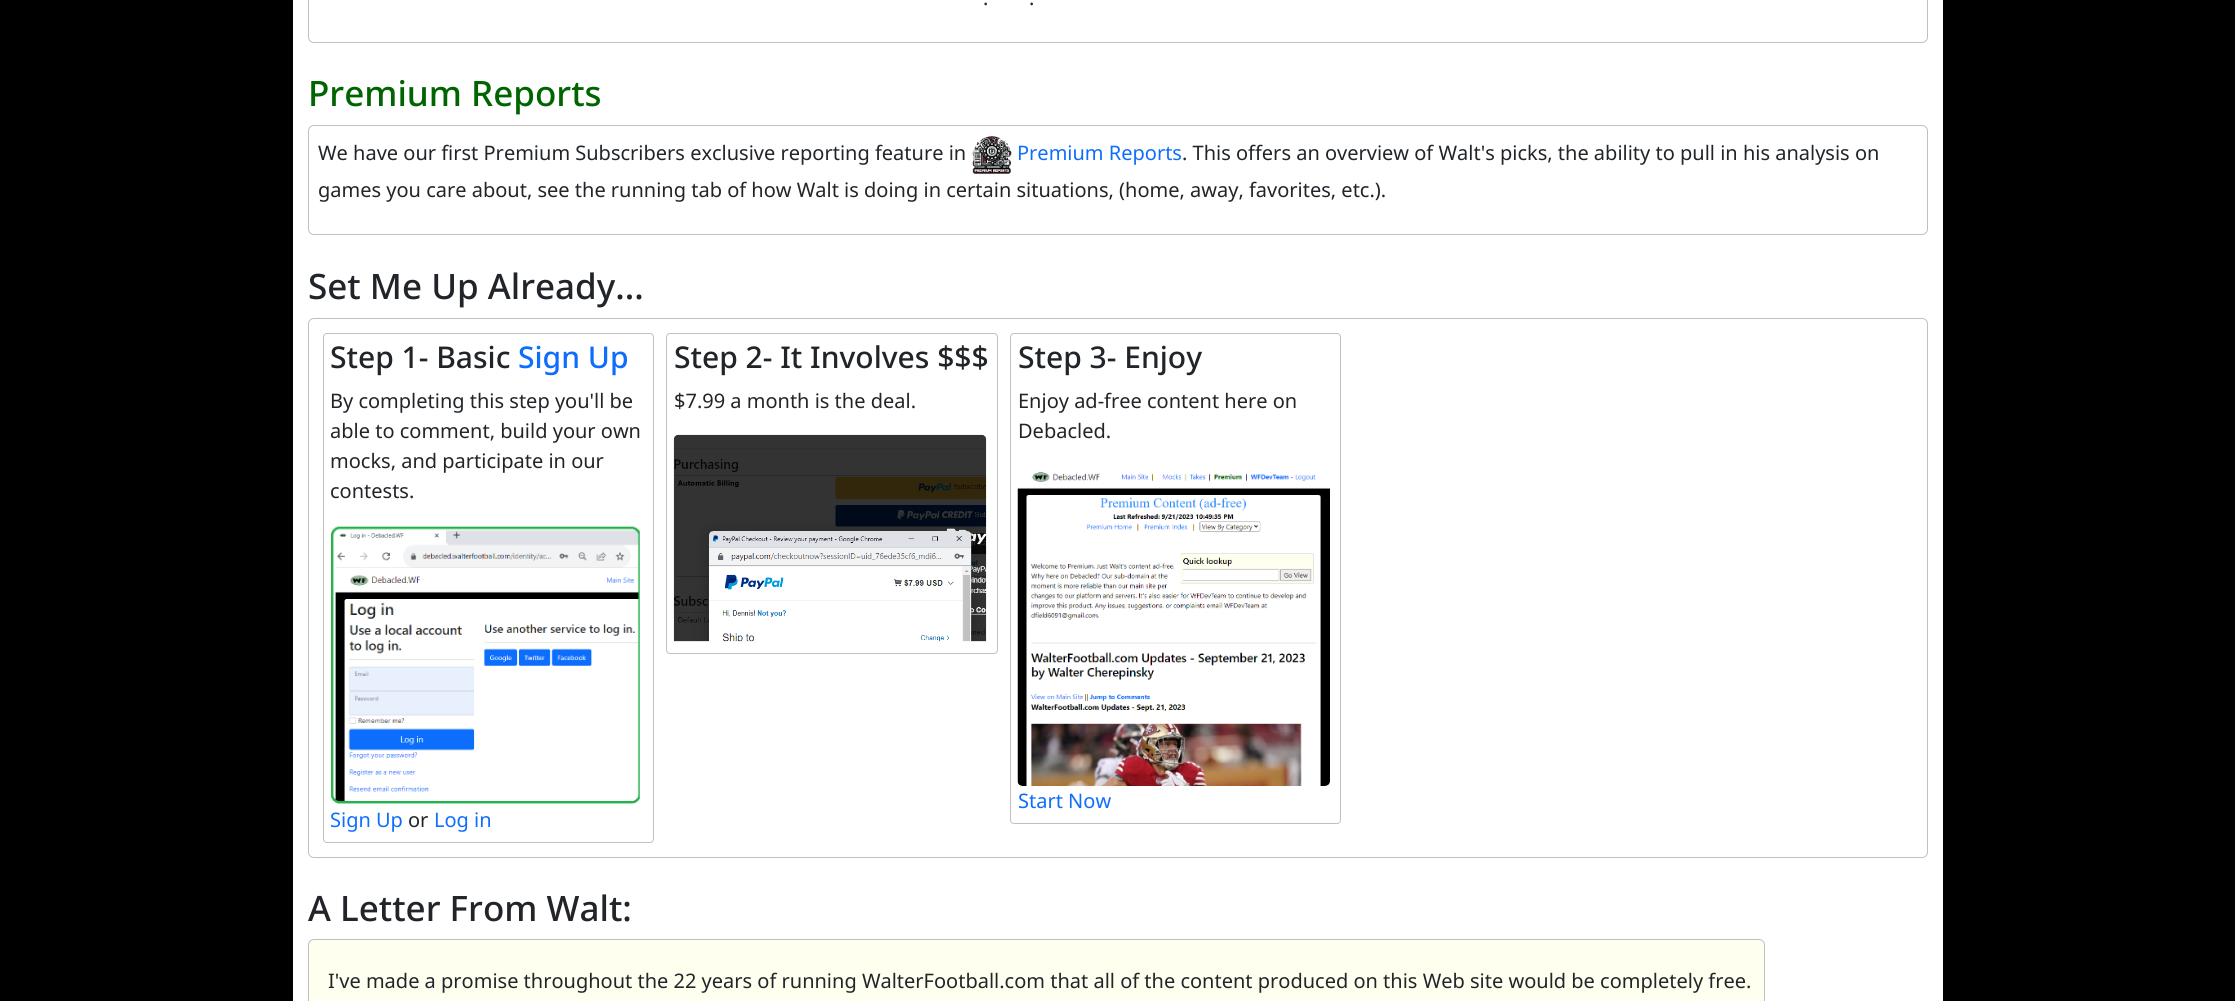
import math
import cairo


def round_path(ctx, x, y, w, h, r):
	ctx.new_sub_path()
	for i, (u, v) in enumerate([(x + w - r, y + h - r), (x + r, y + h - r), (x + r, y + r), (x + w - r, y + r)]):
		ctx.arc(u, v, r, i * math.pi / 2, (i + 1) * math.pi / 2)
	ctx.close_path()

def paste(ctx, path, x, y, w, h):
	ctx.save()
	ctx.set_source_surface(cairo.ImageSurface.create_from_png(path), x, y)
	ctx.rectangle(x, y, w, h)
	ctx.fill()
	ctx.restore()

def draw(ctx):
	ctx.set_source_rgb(0, 0, 0)
	ctx.paint()
	ctx.set_source_rgb(1, 1, 1)
	ctx.rectangle(293, 0, 1650, 1001)
	ctx.fill()
	round_path(ctx, 308.5, -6.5, 1619, 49, 5.5)
	ctx.set_source_rgb(0.753, 0.753, 0.753)
	ctx.set_line_width(1)
	ctx.stroke()
	ctx.select_font_face('Noto Sans')
	ctx.set_font_size(20)
	ctx.set_source_rgb(0.129, 0.145, 0.161)
	ctx.move_to(983, 5)
	ctx.show_text('.')
	ctx.move_to(1029, 5)
	ctx.show_text('.')
	ctx.select_font_face('Noto Sans Medium')
	ctx.set_font_size(35)
	ctx.set_source_rgb(0, 0.392, 0)
	ctx.move_to(308, 106)
	ctx.show_text('Premium Reports')
	round_path(ctx, 308.5, 125.5, 1619, 109, 5.5)
	ctx.set_source_rgb(0.753, 0.753, 0.753)
	ctx.stroke()
	ctx.select_font_face('Noto Sans')
	ctx.set_font_size(20)
	ctx.set_source_rgb(0.129, 0.145, 0.161)
	ctx.move_to(318, 160)
	ctx.show_text('We have our first Premium Subscribers exclusive reporting feature in')
	paste(ctx, 'media/1.png', 972, 136, 40, 38)
	ctx.set_source_rgb(0.051, 0.431, 0.992)
	ctx.move_to(1017, 160)
	ctx.show_text('Premium Reports')
	ctx.set_source_rgb(0.129, 0.145, 0.161)
	ctx.move_to(1182, 160)
	ctx.show_text('. This offers an overview of Walt\'s picks, the ability to pull in his analysis on')
	ctx.move_to(318, 197)
	ctx.show_text('games you care about, see the running tab of how Walt is doing in certain situations, (home, away, favorites, etc.).')
	ctx.select_font_face('Noto Sans Medium')
	ctx.set_font_size(35)
	ctx.move_to(308, 299)
	ctx.show_text('Set Me Up Already...')
	round_path(ctx, 308.5, 318.5, 1619, 539, 5.5)
	ctx.set_source_rgb(0.753, 0.753, 0.753)
	ctx.stroke()
	round_path(ctx, 323.5, 333.5, 330, 509, 3.5)
	ctx.stroke()
	ctx.set_font_size(30)
	ctx.set_source_rgb(0.129, 0.145, 0.161)
	ctx.move_to(330, 368)
	ctx.show_text('Step 1- Basic')
	ctx.set_source_rgb(0.051, 0.431, 0.992)
	ctx.move_to(518, 368)
	ctx.show_text('Sign Up')
	ctx.select_font_face('Noto Sans')
	ctx.set_font_size(20)
	ctx.set_source_rgb(0.129, 0.145, 0.161)
	for x, y, s in [
		(330, 408, 'By completing this step you\'ll be'),
		(330, 438, 'able to comment, build your own'),
		(330, 468, 'mocks, and participate in our'),
		(330, 498, 'contests.'),
	]:
		ctx.move_to(x, y)
		ctx.show_text(s)
	paste(ctx, 'media/2.png', 331, 526, 309, 278)
	ctx.set_source_rgb(0.051, 0.431, 0.992)
	ctx.move_to(330, 827)
	ctx.show_text('Sign Up')
	ctx.set_source_rgb(0.129, 0.145, 0.161)
	ctx.move_to(408, 827)
	ctx.show_text('or')
	ctx.set_source_rgb(0.051, 0.431, 0.992)
	ctx.move_to(434, 827)
	ctx.show_text('Log in')
	round_path(ctx, 666.5, 333.5, 331, 320, 3.5)
	ctx.set_source_rgb(0.753, 0.753, 0.753)
	ctx.stroke()
	ctx.select_font_face('Noto Sans Medium')
	ctx.set_font_size(30)
	ctx.set_source_rgb(0.129, 0.145, 0.161)
	ctx.move_to(674, 368)
	ctx.show_text('Step 2- It Involves $$$')
	ctx.select_font_face('Noto Sans')
	ctx.set_font_size(20)
	ctx.move_to(674, 408)
	ctx.show_text('$7.99 a month is the deal.')
	paste(ctx, 'media/3.png', 673, 434, 314, 208)
	round_path(ctx, 1010.5, 333.5, 330, 490, 3.5)
	ctx.set_source_rgb(0.753, 0.753, 0.753)
	ctx.stroke()
	ctx.select_font_face('Noto Sans Medium')
	ctx.set_font_size(30)
	ctx.set_source_rgb(0.129, 0.145, 0.161)
	ctx.move_to(1018, 368)
	ctx.show_text('Step 3- Enjoy')
	ctx.select_font_face('Noto Sans')
	ctx.set_font_size(20)
	ctx.move_to(1018, 408)
	ctx.show_text('Enjoy ad-free content here on')
	ctx.move_to(1018, 438)
	ctx.show_text('Debacled.')
	paste(ctx, 'media/4.png', 1017, 472, 313, 314)
	ctx.set_source_rgb(0.051, 0.431, 0.992)
	ctx.move_to(1018, 808)
	ctx.show_text('Start Now')
	ctx.select_font_face('Noto Sans Medium')
	ctx.set_font_size(35)
	ctx.set_source_rgb(0.129, 0.145, 0.161)
	ctx.move_to(308, 921)
	ctx.show_text('A Letter From Walt:')
	ctx.set_source_rgb(1, 1, 0.941)
	round_path(ctx, 308.5, 939.5, 1456, 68, 5.5)
	ctx.fill_preserve()
	ctx.set_source_rgb(0.753, 0.753, 0.753)
	ctx.stroke()
	ctx.select_font_face('Noto Sans')
	ctx.set_font_size(20)
	ctx.set_source_rgb(0.129, 0.145, 0.161)
	ctx.move_to(328, 988)
	ctx.show_text('I\'ve made a promise throughout the 22 years of running WalterFootball.com that all of the content produced on this Web site would be completely free.')


surface = cairo.ImageSurface(cairo.FORMAT_RGB24, 2235, 1001)
ctx = cairo.Context(surface)
options = cairo.FontOptions()
options.set_hint_metrics(cairo.HINT_METRICS_OFF)
options.set_hint_style(cairo.HINT_STYLE_NONE)
ctx.set_font_options(options)
ctx.set_miter_limit(4)
draw(ctx)
surface.write_to_png('image.png')
